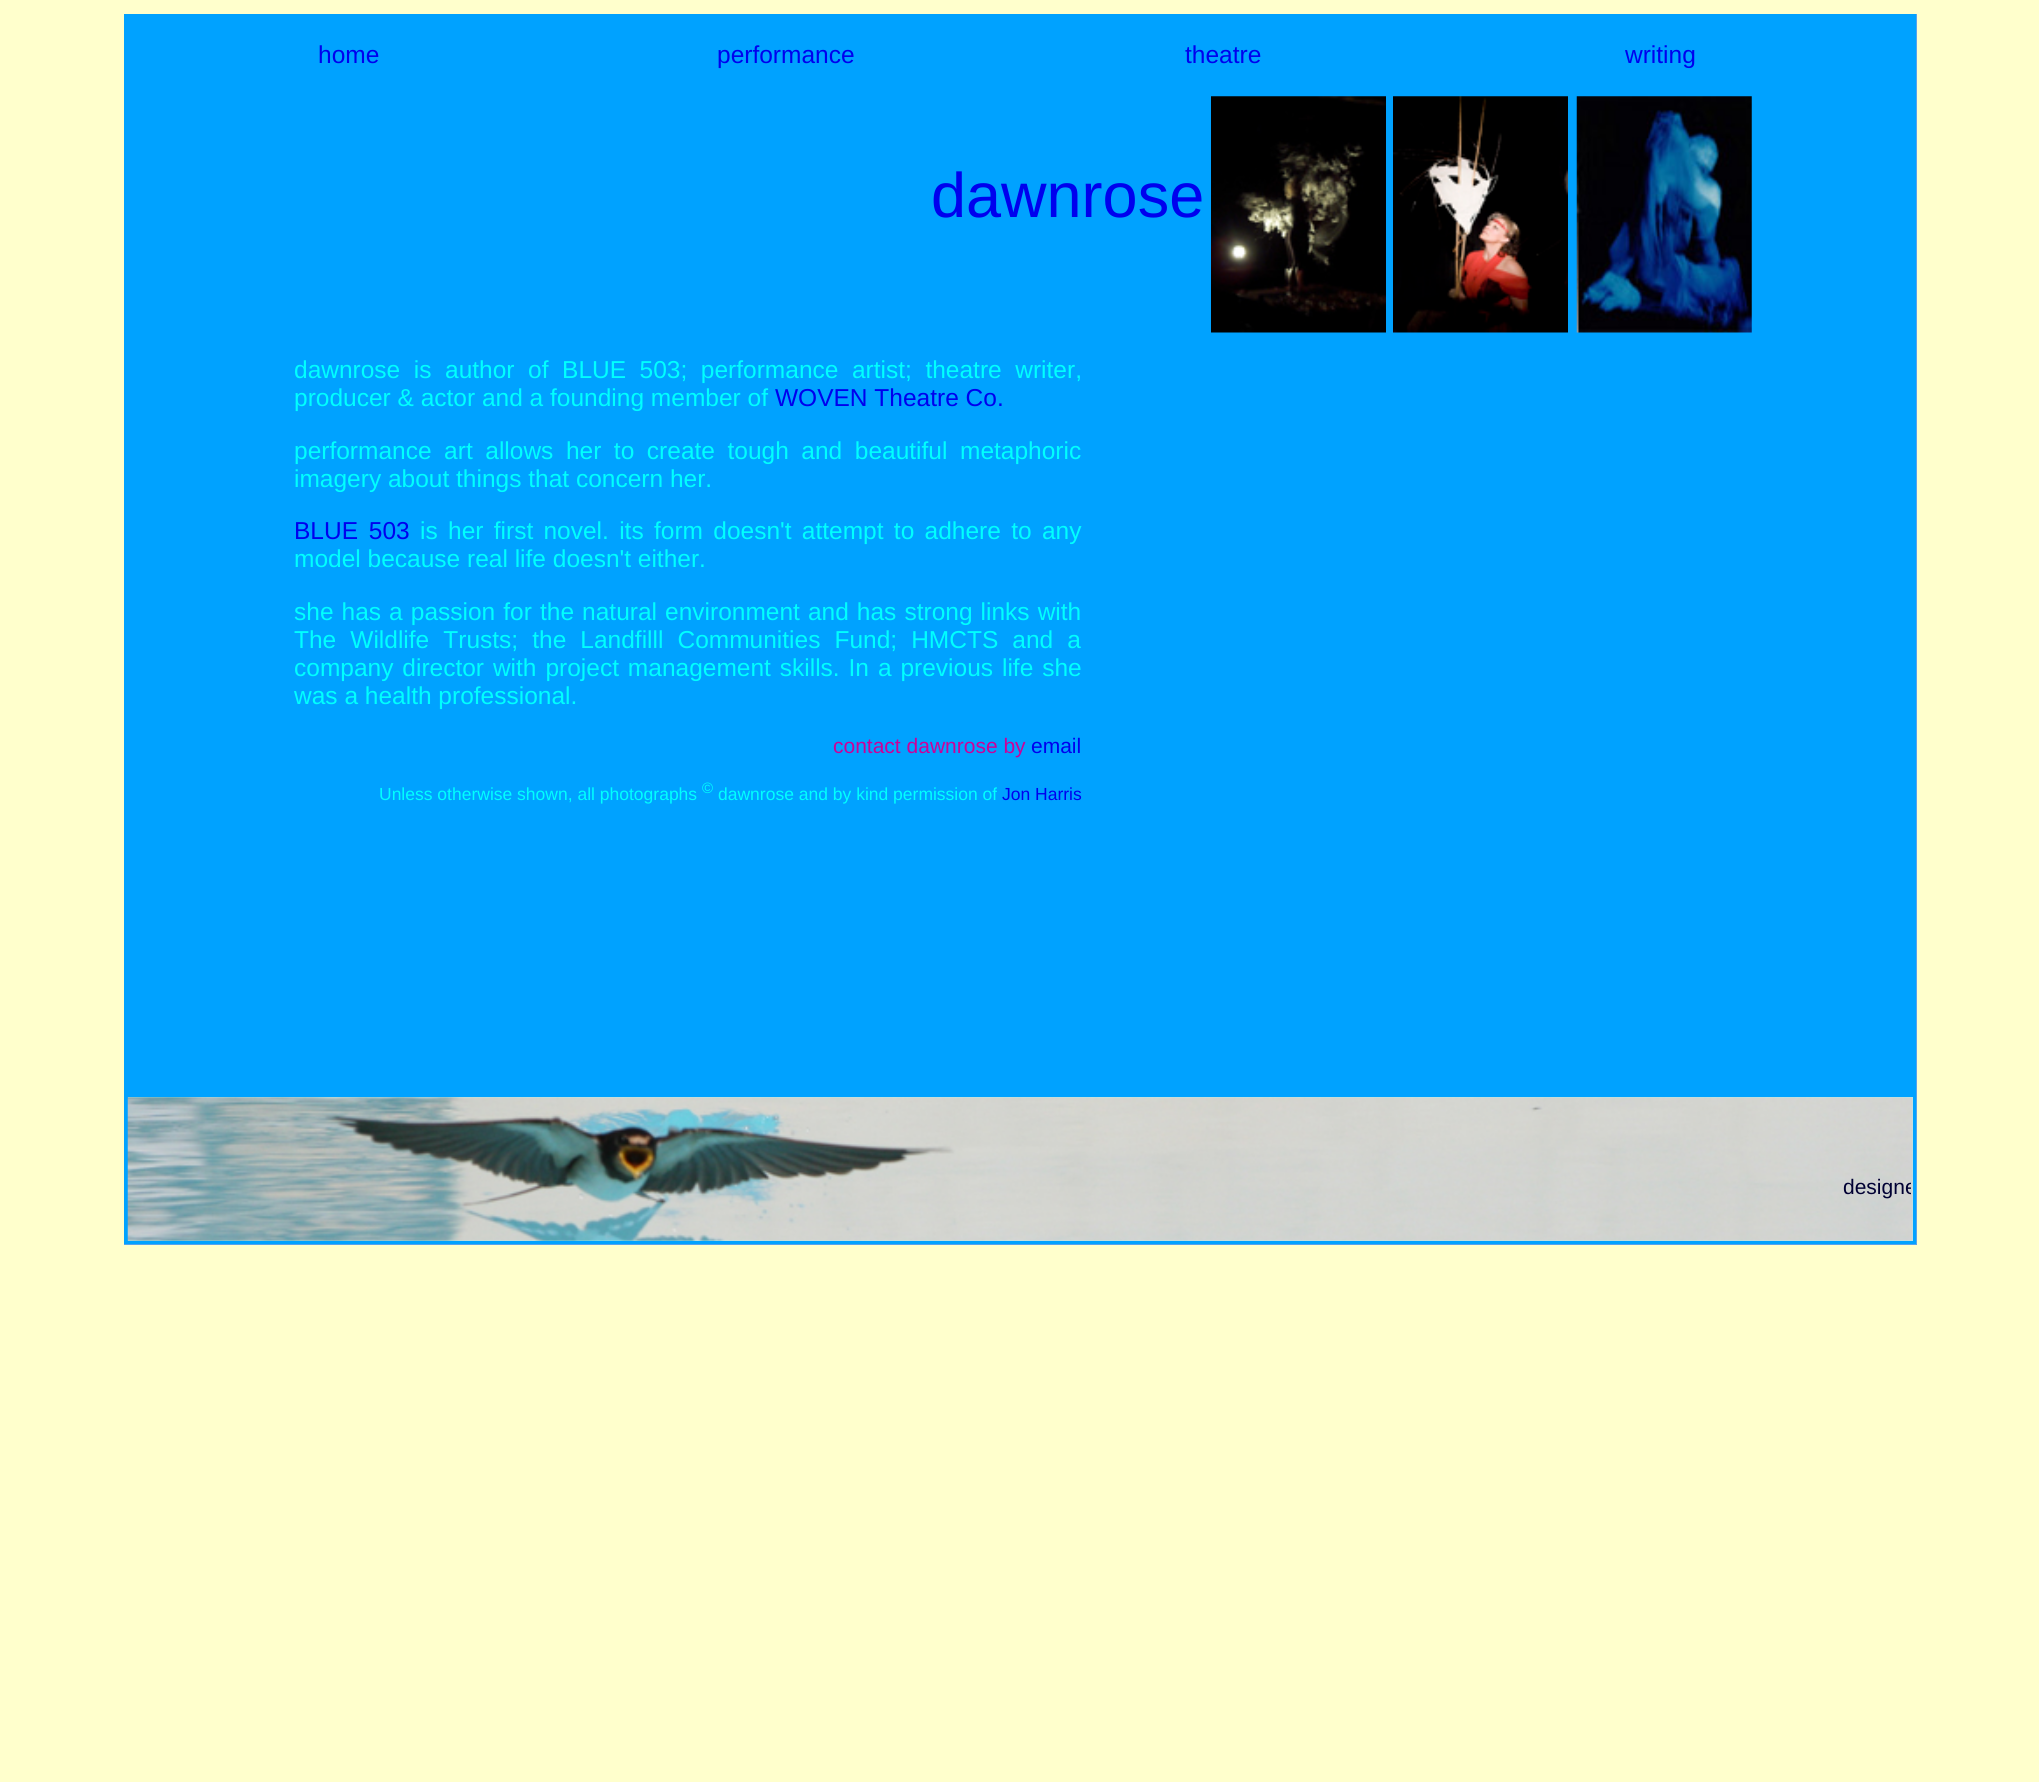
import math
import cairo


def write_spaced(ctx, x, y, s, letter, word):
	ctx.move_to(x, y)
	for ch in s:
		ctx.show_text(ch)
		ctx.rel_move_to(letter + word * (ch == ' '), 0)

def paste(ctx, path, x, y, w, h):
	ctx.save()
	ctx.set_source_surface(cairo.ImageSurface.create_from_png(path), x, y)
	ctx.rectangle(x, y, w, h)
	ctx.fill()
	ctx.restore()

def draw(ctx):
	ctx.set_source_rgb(1, 1, 0.8)
	ctx.paint()
	ctx.set_source_rgb(0.341, 0.635, 0.933)
	ctx.rectangle(124, 14, 1793, 1231)
	ctx.fill()
	ctx.set_source_rgb(0, 0.635, 1)
	ctx.rectangle(124, 14, 1792, 1230)
	ctx.fill()
	ctx.select_font_face('Liberation Sans')
	ctx.set_font_size(24.5)
	ctx.set_source_rgb(0, 0, 0.933)
	for x, y, s in [
		(318, 63, 'home'),
		(717, 63, 'performance'),
		(1185, 63, 'theatre'),
		(1625, 63, 'writing'),
	]:
		ctx.move_to(x, y)
		ctx.show_text(s)
	ctx.set_font_size(63)
	ctx.move_to(931, 217)
	ctx.show_text('dawnrose')
	ctx.set_font_size(24.5)
	ctx.set_source_rgb(0, 1, 1)
	write_spaced(ctx, 294, 378, 'dawnrose is author of BLUE 503; performance artist; theatre writer,', 0, 6.75)
	ctx.move_to(294, 406)
	ctx.show_text('producer & actor and a founding member of')
	ctx.set_source_rgb(0, 0, 0.933)
	ctx.move_to(775, 406)
	ctx.show_text('WOVEN Theatre Co.')
	ctx.set_source_rgb(0, 1, 1)
	write_spaced(ctx, 294, 459, 'performance art allows her to create tough and beautiful metaphoric', 0, 5.75)
	ctx.move_to(294, 487)
	ctx.show_text('imagery about things that concern her.')
	ctx.set_source_rgb(0, 0, 0.933)
	write_spaced(ctx, 294, 539, 'BLUE 503', 0, 4)
	ctx.set_source_rgb(0, 1, 1)
	write_spaced(ctx, 420, 539, 'is her first novel. its form doesn\'t attempt to adhere to any', 0, 3.5)
	ctx.move_to(294, 567)
	ctx.show_text('model because real life doesn\'t either.')
	write_spaced(ctx, 294, 620, 'she has a passion for the natural environment and has strong links with', 0, 1.25)
	write_spaced(ctx, 294, 648, 'The Wildlife Trusts; the Landfilll Communities Fund; HMCTS and a', 0, 7.25)
	write_spaced(ctx, 294, 676, 'company director with project management skills. In a previous life she', 0, 2.1)
	ctx.move_to(294, 704)
	ctx.show_text('was a health professional.')
	ctx.set_font_size(21)
	ctx.set_source_rgb(0.8, 0, 0.6)
	ctx.move_to(833, 753)
	ctx.show_text('contact dawnrose by')
	ctx.set_source_rgb(0, 0, 0.933)
	ctx.move_to(1031, 753)
	ctx.show_text('email')
	ctx.set_font_size(17.5)
	ctx.set_source_rgb(0, 1, 1)
	ctx.move_to(379, 800)
	ctx.show_text('Unless otherwise shown, all photographs')
	ctx.set_font_size(15)
	ctx.move_to(702, 793)
	ctx.show_text('©')
	ctx.set_font_size(17.5)
	ctx.move_to(718, 800)
	ctx.show_text('dawnrose and by kind permission of')
	ctx.set_source_rgb(0, 0, 0.933)
	ctx.move_to(1002, 800)
	ctx.show_text('Jon Harris')
	paste(ctx, 'media/1.png', 1211, 96, 175, 237)
	paste(ctx, 'media/2.png', 1393, 96, 175, 237)
	paste(ctx, 'media/3.png', 1576, 96, 176, 237)
	ctx.set_source_rgb(0.6, 1, 1)
	ctx.rectangle(128, 1097, 1785, 144)
	ctx.fill()
	paste(ctx, 'media/4.png', 127, 1097, 1786, 144)
	ctx.save()
	ctx.rectangle(130, 1171, 1781, 30)
	ctx.clip()
	ctx.set_font_size(21)
	ctx.set_source_rgb(0, 0, 0.2)
	ctx.move_to(1843, 1194)
	ctx.show_text('designe')
	ctx.restore()


surface = cairo.ImageSurface(cairo.FORMAT_RGB24, 2039, 1782)
ctx = cairo.Context(surface)
options = cairo.FontOptions()
options.set_hint_metrics(cairo.HINT_METRICS_OFF)
options.set_hint_style(cairo.HINT_STYLE_NONE)
ctx.set_font_options(options)
ctx.set_miter_limit(4)
draw(ctx)
surface.write_to_png('image.png')
